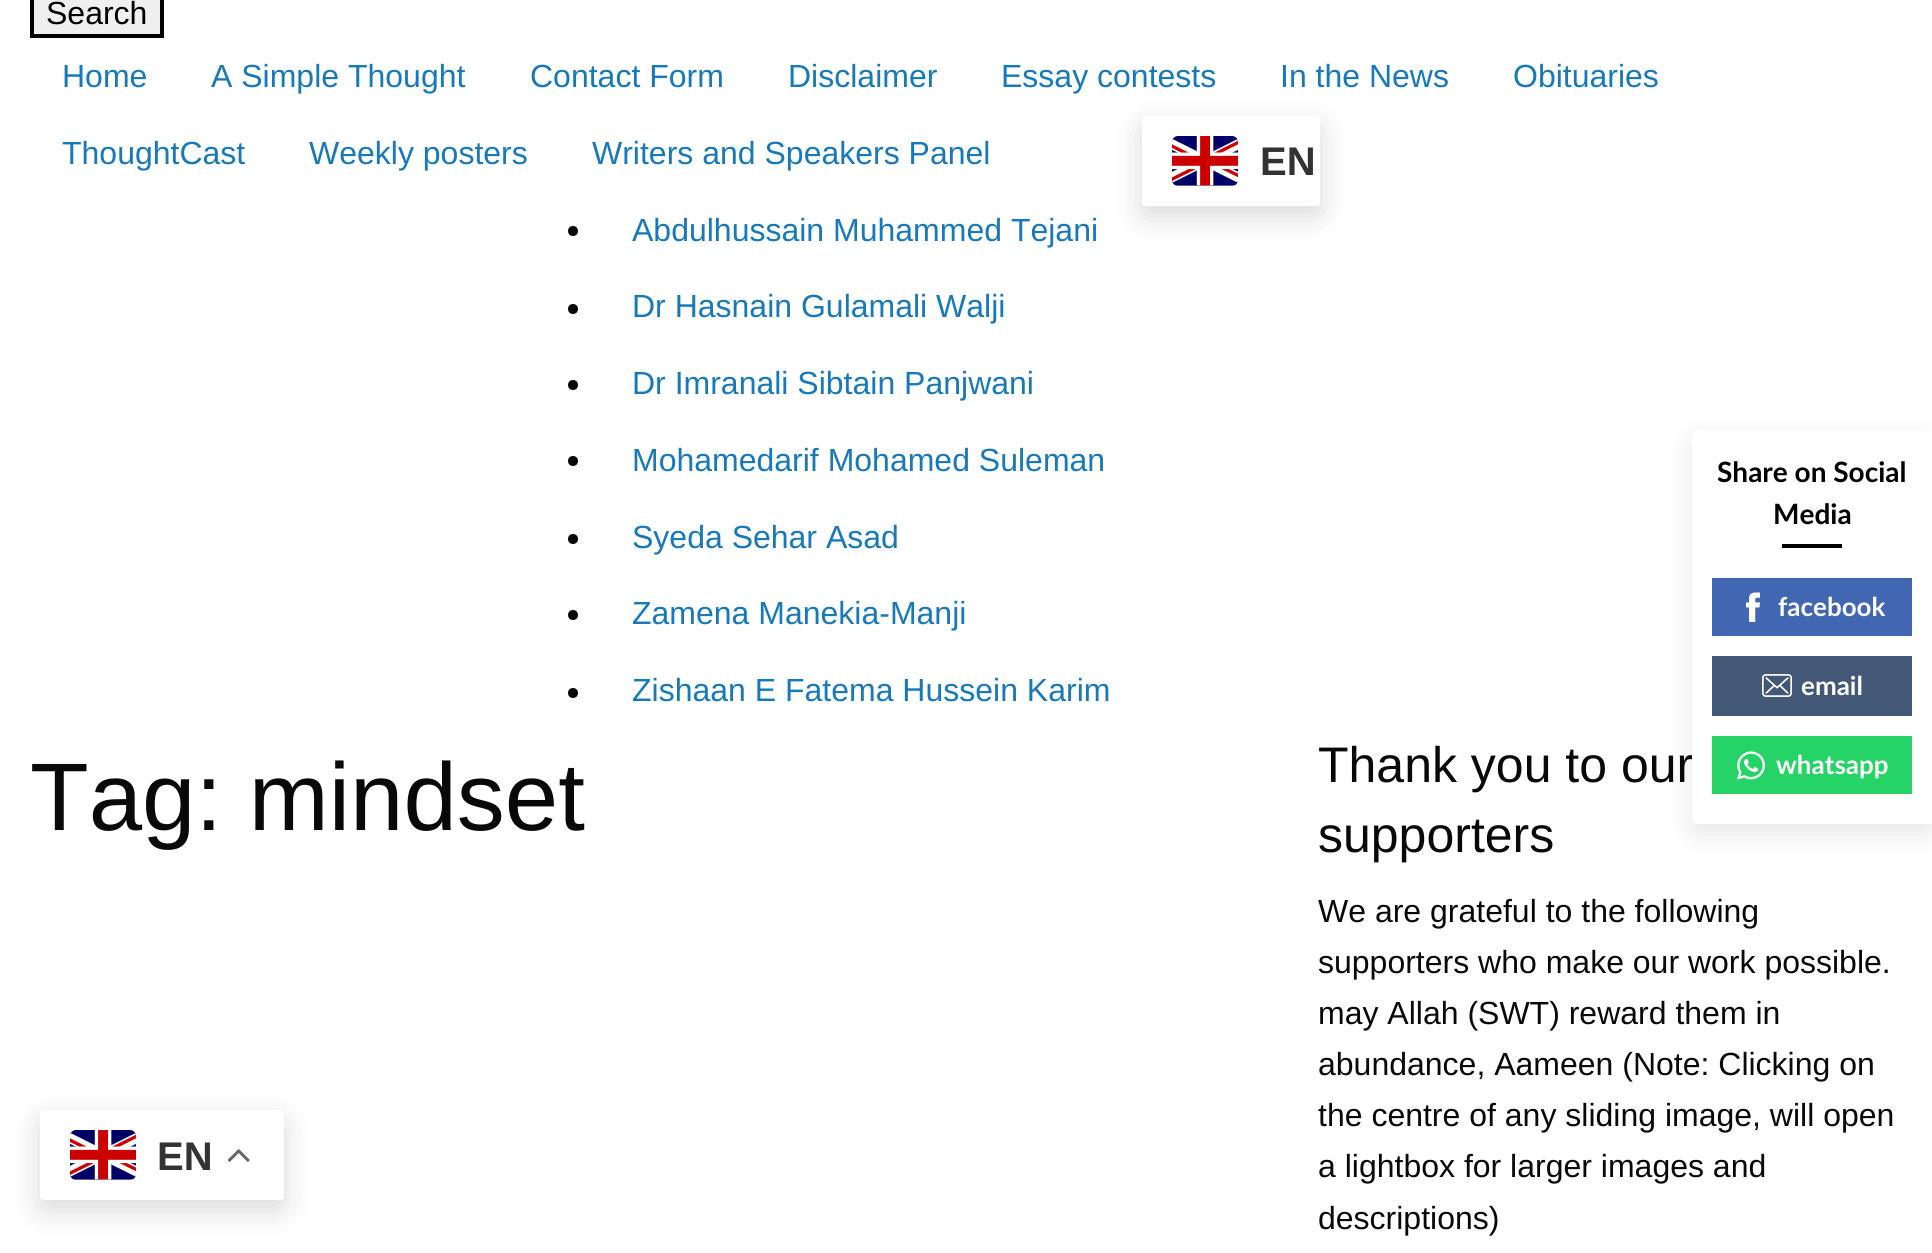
import math
import cairo


def round_path(ctx, x, y, w, h, r):
	ctx.new_sub_path()
	for i, (u, v) in enumerate([(x + w - r, y + h - r), (x + r, y + h - r), (x + r, y + r), (x + w - r, y + r)]):
		ctx.arc(u, v, r, i * math.pi / 2, (i + 1) * math.pi / 2)
	ctx.close_path()

def blur_box(ctx, x, y, w, h, r, blur, alpha):
	ctx.push_group_with_content(cairo.CONTENT_ALPHA)
	ctx.set_operator(cairo.OPERATOR_SOURCE)
	for i in range(15, -16, -2):
		e = blur * i / 6
		if min(w, h) + 2 * e > 0:
			ctx.set_source_rgba(0, 0, 0, alpha * math.erfc((i - 1) / 8.5) / 2)
			round_path(ctx, x - e, y - e, w + 2 * e, h + 2 * e, max(0, min(r + e + blur * .6, min(w, h) / 2 + e)))
			ctx.fill()
	ctx.mask(ctx.pop_group())

def paste(ctx, path, x, y, w, h):
	ctx.save()
	ctx.set_source_surface(cairo.ImageSurface.create_from_png(path), x, y)
	ctx.rectangle(x, y, w, h)
	ctx.fill()
	ctx.restore()

def draw(ctx):
	ctx.set_source_rgb(1, 1, 1)
	ctx.paint()
	ctx.set_source_rgb(0.937, 0.937, 0.937)
	ctx.rectangle(32, -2, 130, 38)
	ctx.fill_preserve()
	ctx.set_source_rgb(0, 0, 0)
	ctx.set_line_width(4)
	ctx.stroke()
	ctx.select_font_face('Liberation Sans')
	ctx.set_font_size(32)
	ctx.move_to(46, 24)
	ctx.show_text('Search')
	ctx.set_source_rgb(0.09, 0.475, 0.729)
	for x, y, s in [
		(62, 87, 'Home'),
		(211, 87, 'A Simple Thought'),
		(530, 87, 'Contact Form'),
		(788, 87, 'Disclaimer'),
		(1001, 87, 'Essay contests'),
		(1280, 87, 'In the News'),
		(1513, 87, 'Obituaries'),
		(62, 164, 'ThoughtCast'),
		(309, 164, 'Weekly posters'),
		(592, 164, 'Writers and Speakers Panel'),
	]:
		ctx.move_to(x, y)
		ctx.show_text(s)
	ctx.set_source_rgb(0.039, 0.039, 0.039)
	ctx.new_path()
	ctx.arc(573, 231, 5, 0, 2 * math.pi)
	ctx.fill()
	ctx.set_source_rgb(0.09, 0.475, 0.729)
	ctx.move_to(632, 241)
	ctx.show_text('Abdulhussain Muhammed Tejani')
	ctx.set_source_rgb(0.039, 0.039, 0.039)
	ctx.new_path()
	ctx.arc(573, 309, 5, 0, 2 * math.pi)
	ctx.fill()
	ctx.set_source_rgb(0.09, 0.475, 0.729)
	ctx.move_to(632, 317)
	ctx.show_text('Dr Hasnain Gulamali Walji')
	ctx.set_source_rgb(0.039, 0.039, 0.039)
	ctx.new_path()
	ctx.arc(573, 385, 5, 0, 2 * math.pi)
	ctx.fill()
	ctx.set_source_rgb(0.09, 0.475, 0.729)
	ctx.move_to(632, 394)
	ctx.show_text('Dr Imranali Sibtain Panjwani')
	ctx.set_source_rgb(0.039, 0.039, 0.039)
	ctx.new_path()
	ctx.arc(573, 461, 5, 0, 2 * math.pi)
	ctx.fill()
	ctx.set_source_rgb(0.09, 0.475, 0.729)
	ctx.move_to(632, 471)
	ctx.show_text('Mohamedarif Mohamed Suleman')
	ctx.set_source_rgb(0.039, 0.039, 0.039)
	ctx.new_path()
	ctx.arc(573, 539, 5, 0, 2 * math.pi)
	ctx.fill()
	ctx.set_source_rgb(0.09, 0.475, 0.729)
	ctx.move_to(632, 548)
	ctx.show_text('Syeda Sehar Asad')
	ctx.set_source_rgb(0.039, 0.039, 0.039)
	ctx.new_path()
	ctx.arc(573, 615, 5, 0, 2 * math.pi)
	ctx.fill()
	ctx.set_source_rgb(0.09, 0.475, 0.729)
	ctx.move_to(632, 624)
	ctx.show_text('Zamena Manekia-Manji')
	ctx.set_source_rgb(0.039, 0.039, 0.039)
	ctx.new_path()
	ctx.arc(573, 693, 5, 0, 2 * math.pi)
	ctx.fill()
	ctx.set_source_rgb(0.09, 0.475, 0.729)
	ctx.move_to(632, 701)
	ctx.show_text('Zishaan E Fatema Hussein Karim')
	ctx.set_source_rgb(0, 0, 0)
	blur_box(ctx, 1142, 126, 178, 90, 4, 15, 0.15)
	ctx.set_source_rgb(1, 1, 1)
	round_path(ctx, 1142, 116, 178, 90, 4)
	ctx.fill()
	paste(ctx, 'media/1.png', 1172, 136, 66, 50)
	ctx.select_font_face('Liberation Sans', cairo.FONT_SLANT_NORMAL, cairo.FONT_WEIGHT_BOLD)
	ctx.set_font_size(40)
	ctx.set_source_rgb(0.2, 0.2, 0.2)
	ctx.move_to(1260, 175)
	ctx.show_text('EN')
	ctx.set_source_rgb(0, 0, 0)
	blur_box(ctx, 1692, 440, 240, 394, 6, 13, 0.1)
	ctx.select_font_face('Liberation Sans')
	ctx.set_font_size(50)
	ctx.set_source_rgb(0.039, 0.039, 0.039)
	ctx.move_to(1318, 782)
	ctx.show_text('Thank you to our')
	ctx.set_source_rgb(1, 1, 1)
	ctx.new_path()
	ctx.move_to(1698, 430)
	ctx.line_to(1932, 430)
	ctx.line_to(1932, 824)
	ctx.line_to(1698, 824)
	ctx.curve_to(1694.5, 824, 1692, 821.5, 1692, 818)
	ctx.line_to(1692, 436)
	ctx.curve_to(1692, 432.5, 1694.5, 430, 1698, 430)
	ctx.close_path()
	ctx.fill()
	ctx.select_font_face('Lato', cairo.FONT_SLANT_NORMAL, cairo.FONT_WEIGHT_BOLD)
	ctx.set_font_size(28)
	ctx.set_source_rgb(0, 0, 0)
	ctx.move_to(1717, 482)
	ctx.show_text('Share on Social')
	ctx.move_to(1773, 524)
	ctx.show_text('Media')
	ctx.rectangle(1782, 544, 60, 4)
	ctx.fill()
	ctx.set_source_rgb(0.259, 0.404, 0.698)
	ctx.rectangle(1712, 578, 200, 58)
	ctx.fill()
	paste(ctx, 'media/2.png', 1746, 592, 14, 30)
	ctx.set_font_size(26)
	ctx.set_source_rgb(1, 1, 1)
	ctx.move_to(1778, 616)
	ctx.show_text('facebook')
	ctx.set_source_rgb(0.263, 0.345, 0.467)
	ctx.rectangle(1712, 656, 200, 60)
	ctx.fill()
	paste(ctx, 'media/3.png', 1762, 674, 30, 23)
	ctx.set_source_rgb(1, 1, 1)
	ctx.move_to(1801, 695)
	ctx.show_text('email')
	ctx.set_source_rgb(0.149, 0.827, 0.404)
	ctx.rectangle(1712, 736, 200, 58)
	ctx.fill()
	paste(ctx, 'media/4.png', 1737, 751, 28, 29)
	ctx.set_source_rgb(1, 1, 1)
	ctx.move_to(1776, 774)
	ctx.show_text('whatsapp')
	ctx.select_font_face('Liberation Sans')
	ctx.set_font_size(96)
	ctx.set_source_rgb(0.039, 0.039, 0.039)
	ctx.move_to(30, 830)
	ctx.show_text('Tag: mindset')
	ctx.set_font_size(50)
	ctx.move_to(1318, 852)
	ctx.show_text('supporters')
	ctx.set_font_size(32)
	for x, y, s in [
		(1318, 922, 'We are grateful to the following'),
		(1318, 973, 'supporters who make our work possible.'),
		(1318, 1024, 'may Allah (SWT) reward them in'),
		(1318, 1075, 'abundance, Aameen (Note: Clicking on'),
		(1318, 1126, 'the centre of any sliding image, will open'),
		(1318, 1177, 'a lightbox for larger images and'),
		(1318, 1229, 'descriptions)'),
	]:
		ctx.move_to(x, y)
		ctx.show_text(s)
	ctx.set_source_rgb(0, 0, 0)
	blur_box(ctx, 40, 1120, 244, 90, 4, 15, 0.15)
	ctx.set_source_rgb(1, 1, 1)
	round_path(ctx, 40, 1110, 244, 90, 4)
	ctx.fill()
	paste(ctx, 'media/1.png', 70, 1130, 66, 50)
	ctx.select_font_face('Liberation Sans', cairo.FONT_SLANT_NORMAL, cairo.FONT_WEIGHT_BOLD)
	ctx.set_font_size(40)
	ctx.set_source_rgb(0.2, 0.2, 0.2)
	ctx.move_to(157, 1170)
	ctx.show_text('EN')
	paste(ctx, 'media/5.png', 228, 1149, 22, 13)


surface = cairo.ImageSurface(cairo.FORMAT_RGB24, 1932, 1253)
ctx = cairo.Context(surface)
options = cairo.FontOptions()
options.set_hint_metrics(cairo.HINT_METRICS_OFF)
options.set_hint_style(cairo.HINT_STYLE_NONE)
ctx.set_font_options(options)
ctx.set_miter_limit(4)
draw(ctx)
surface.write_to_png('image.png')
